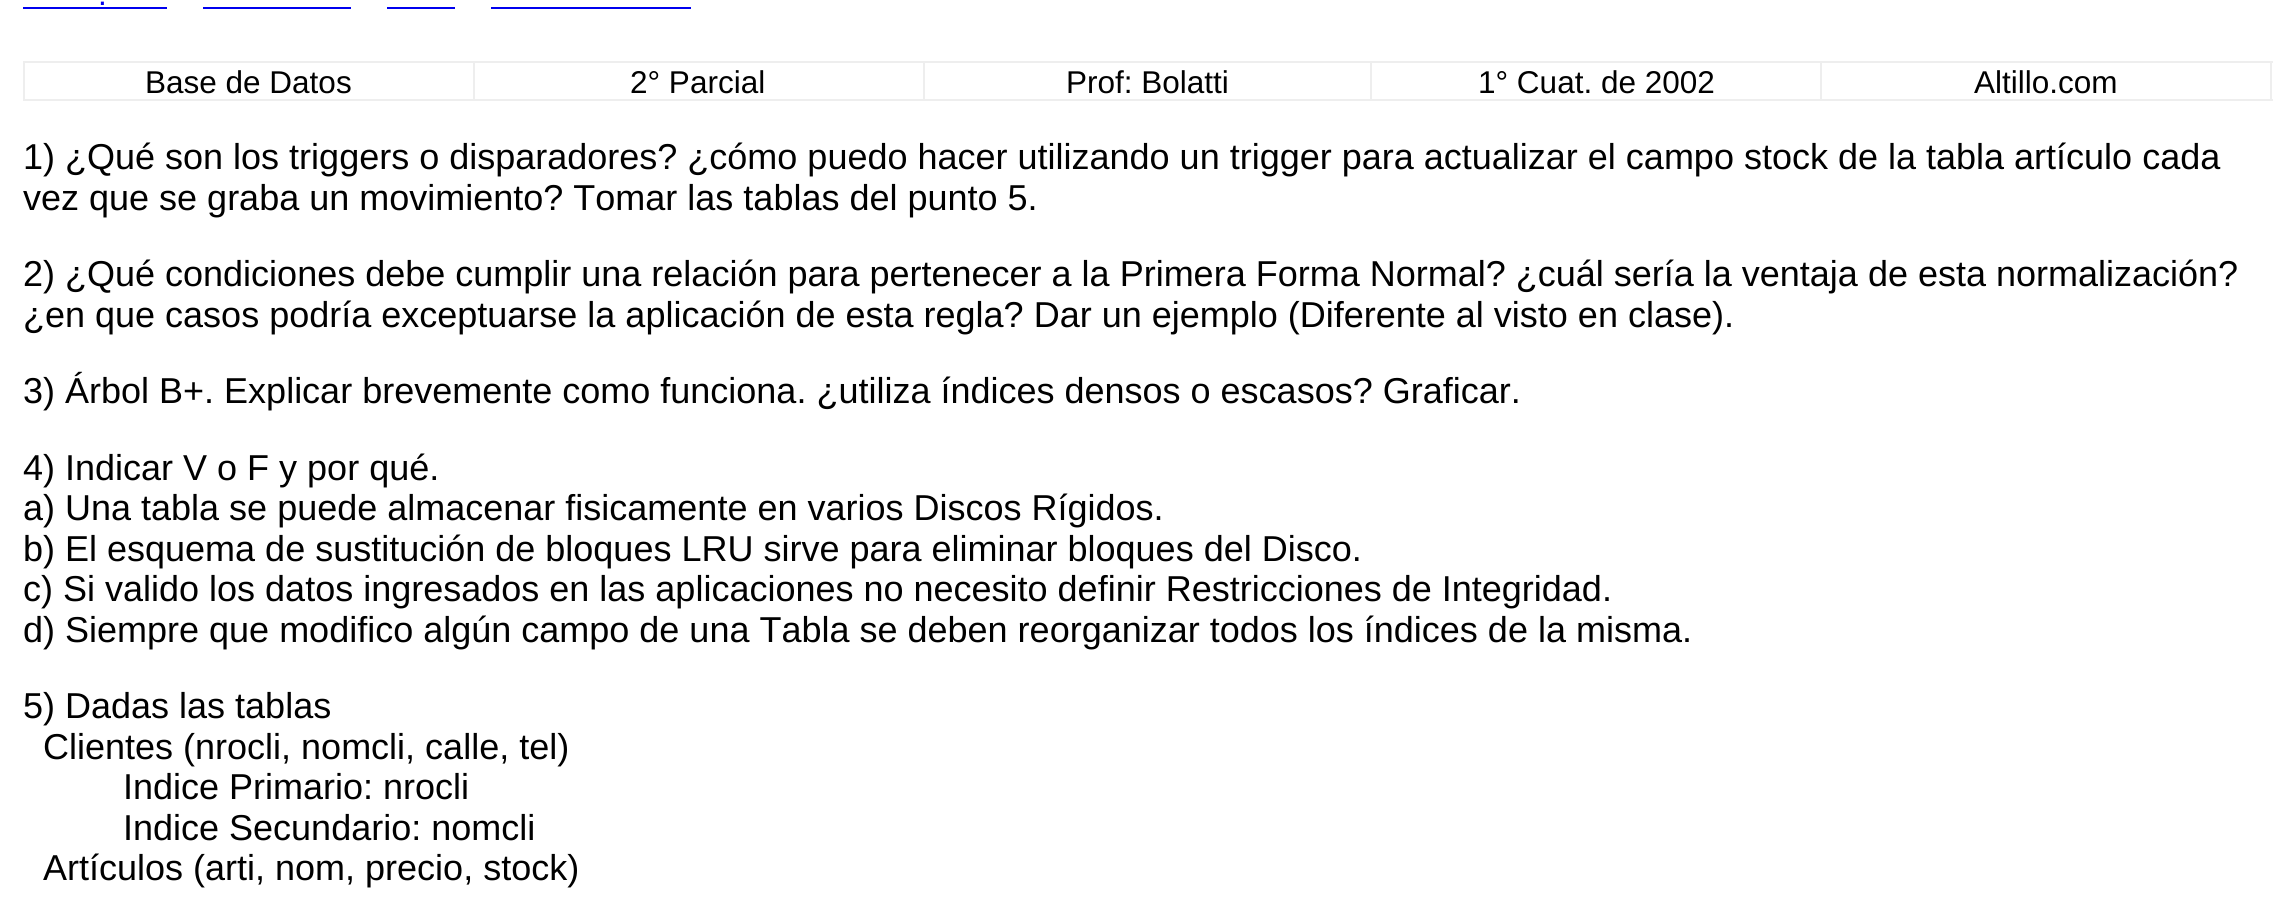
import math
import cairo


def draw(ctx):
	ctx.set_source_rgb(1, 1, 1)
	ctx.paint()
	ctx.select_font_face('Liberation Sans')
	ctx.set_font_size(31.5)
	ctx.set_source_rgb(0, 0, 0.933)
	ctx.move_to(98, 5)
	ctx.show_text('.')
	ctx.rectangle(23, 7, 144, 2)
	ctx.rectangle(203, 7, 148, 2)
	ctx.rectangle(387, 7, 68, 2)
	ctx.rectangle(491, 7, 200, 2)
	ctx.fill()
	ctx.set_source_rgb(0.933, 0.933, 0.933)
	ctx.rectangle(1820, 61, 453, 2)
	ctx.rectangle(2270, 61, 2, 40)
	ctx.rectangle(1820, 99, 453, 2)
	ctx.rectangle(1820, 61, 2, 40)
	ctx.rectangle(1370, 61, 453, 2)
	ctx.rectangle(1370, 99, 453, 2)
	ctx.rectangle(1370, 61, 2, 40)
	ctx.rectangle(923, 61, 450, 2)
	ctx.rectangle(923, 99, 450, 2)
	ctx.rectangle(923, 61, 2, 40)
	ctx.rectangle(473, 61, 452, 2)
	ctx.rectangle(473, 99, 452, 2)
	ctx.rectangle(473, 61, 2, 40)
	ctx.rectangle(23, 61, 452, 2)
	ctx.rectangle(23, 99, 452, 2)
	ctx.rectangle(23, 61, 2, 40)
	ctx.fill()
	ctx.set_source_rgb(0, 0, 0)
	for x, y, s in [
		(145, 93, 'Base de Datos'),
		(630, 93, '2° Parcial'),
		(1066, 93, 'Prof: Bolatti'),
		(1478, 93, '1° Cuat. de 2002'),
		(1974, 93, 'Altillo.com'),
	]:
		ctx.move_to(x, y)
		ctx.show_text(s)
	ctx.set_font_size(36)
	for x, y, s in [
		(23, 169, '1) ¿Qué son los triggers o disparadores? ¿cómo puedo hacer utilizando un trigger para actualizar el campo stock de la tabla artículo cada'),
		(23, 210, 'vez que se graba un movimiento? Tomar las tablas del punto 5.'),
		(23, 286, '2) ¿Qué condiciones debe cumplir una relación para pertenecer a la Primera Forma Normal? ¿cuál sería la ventaja de esta normalización?'),
		(23, 327, '¿en que casos podría exceptuarse la aplicación de esta regla? Dar un ejemplo (Diferente al visto en clase).'),
		(23, 403, '3) Árbol B+. Explicar brevemente como funciona. ¿utiliza índices densos o escasos? Graficar.'),
		(23, 480, '4) Indicar V o F y por qué.'),
		(23, 520, 'a) Una tabla se puede almacenar fisicamente en varios Discos Rígidos.'),
		(23, 561, 'b) El esquema de sustitución de bloques LRU sirve para eliminar bloques del Disco.'),
		(23, 601, 'c) Si valido los datos ingresados en las aplicaciones no necesito definir Restricciones de Integridad.'),
		(23, 642, 'd) Siempre que modifico algún campo de una Tabla se deben reorganizar todos los índices de la misma.'),
		(23, 718, '5) Dadas las tablas'),
		(43, 759, 'Clientes (nrocli, nomcli, calle, tel)'),
		(123, 799, 'Indice Primario: nrocli'),
		(123, 840, 'Indice Secundario: nomcli'),
		(43, 880, 'Artículos (arti, nom, precio, stock)'),
	]:
		ctx.move_to(x, y)
		ctx.show_text(s)


surface = cairo.ImageSurface(cairo.FORMAT_RGB24, 2293, 905)
ctx = cairo.Context(surface)
options = cairo.FontOptions()
options.set_hint_metrics(cairo.HINT_METRICS_OFF)
options.set_hint_style(cairo.HINT_STYLE_NONE)
ctx.set_font_options(options)
ctx.set_miter_limit(4)
draw(ctx)
surface.write_to_png('image.png')
